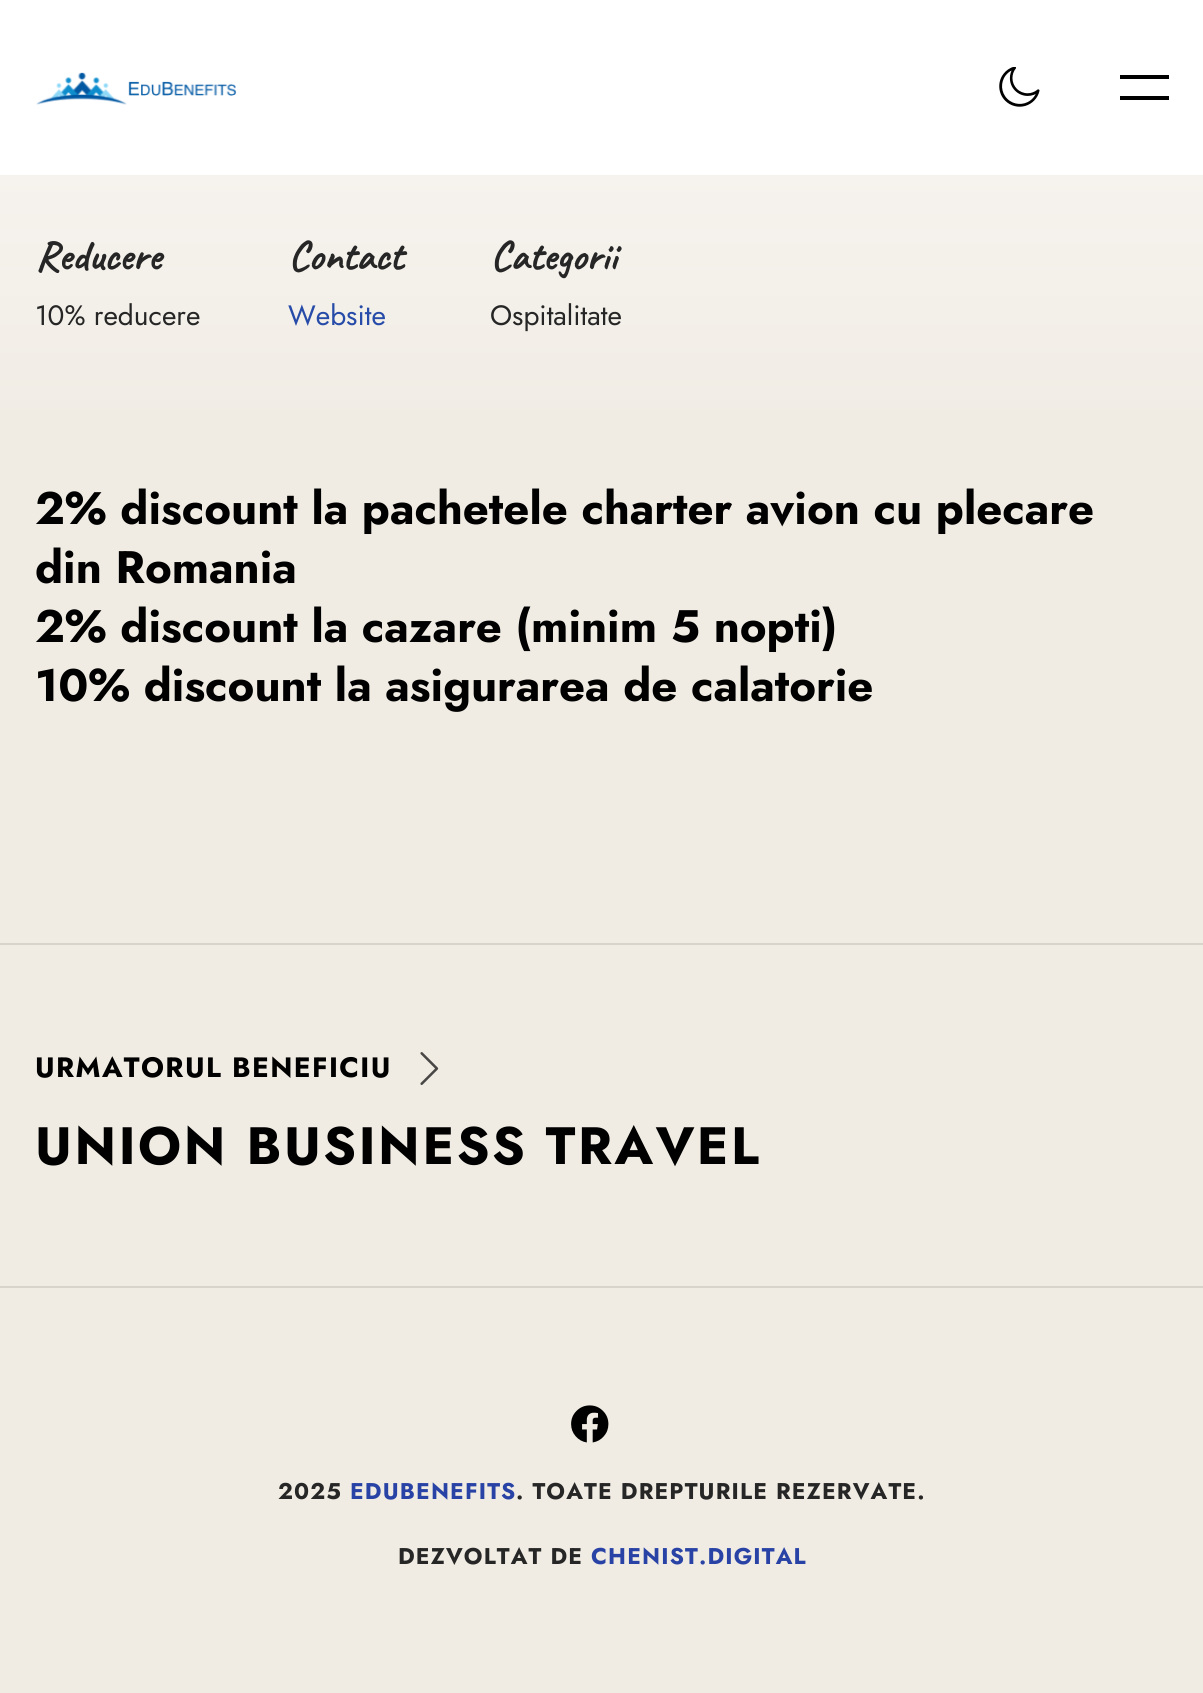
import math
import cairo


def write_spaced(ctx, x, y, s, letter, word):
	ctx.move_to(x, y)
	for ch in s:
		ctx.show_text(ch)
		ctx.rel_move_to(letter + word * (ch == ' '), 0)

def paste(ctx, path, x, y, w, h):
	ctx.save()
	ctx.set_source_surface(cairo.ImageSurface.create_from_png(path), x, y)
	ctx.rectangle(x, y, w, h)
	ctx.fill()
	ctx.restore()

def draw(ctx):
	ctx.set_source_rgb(0.941, 0.922, 0.89)
	ctx.paint()
	ctx.set_source_rgb(1, 1, 1)
	ctx.rectangle(0, 0, 1203, 175)
	ctx.fill()
	paste(ctx, 'media/1.png', 36, 72, 201, 33)
	paste(ctx, 'media/2.png', 999, 67, 41, 40)
	ctx.set_source_rgb(0, 0, 0)
	ctx.rectangle(1120, 75, 49, 4)
	ctx.fill()
	ctx.rectangle(1120, 96, 49, 4)
	ctx.fill()
	gradient = cairo.LinearGradient(602, -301, 602, 480)
	gradient.add_color_stop_rgba(0, 1, 1, 1, 1)
	gradient.add_color_stop_rgba(1, 0.941, 0.922, 0.89, 1)
	ctx.set_source(gradient)
	ctx.rectangle(0, 175, 1203, 235)
	ctx.fill()
	ctx.select_font_face('Caveat', cairo.FONT_SLANT_NORMAL, cairo.FONT_WEIGHT_BOLD)
	ctx.set_font_size(42)
	ctx.set_source_rgb(0.149, 0.149, 0.149)
	ctx.move_to(35, 270)
	ctx.show_text('Reducere')
	ctx.select_font_face('Jost')
	ctx.set_font_size(28)
	ctx.move_to(35, 325)
	ctx.show_text('10% reducere')
	ctx.select_font_face('Caveat', cairo.FONT_SLANT_NORMAL, cairo.FONT_WEIGHT_BOLD)
	ctx.set_font_size(42)
	ctx.move_to(288, 270)
	ctx.show_text('Contact')
	ctx.select_font_face('Jost')
	ctx.set_font_size(28)
	ctx.set_source_rgb(0.149, 0.294, 0.659)
	ctx.move_to(288, 325)
	ctx.show_text('Website')
	ctx.select_font_face('Caveat', cairo.FONT_SLANT_NORMAL, cairo.FONT_WEIGHT_BOLD)
	ctx.set_font_size(42)
	ctx.set_source_rgb(0.149, 0.149, 0.149)
	ctx.move_to(490, 270)
	ctx.show_text('Categorii')
	ctx.select_font_face('Jost')
	ctx.set_font_size(28)
	ctx.move_to(490, 325)
	ctx.show_text('Ospitalitate')
	ctx.select_font_face('Jost', cairo.FONT_SLANT_NORMAL, cairo.FONT_WEIGHT_BOLD)
	ctx.set_font_size(45.5)
	ctx.set_source_rgb(0, 0, 0)
	for x, y, s in [
		(35, 524, '2% discount la pachetele charter avion cu plecare'),
		(35, 583, 'din Romania'),
		(35, 642, '2% discount la cazare (minim 5 nopti)'),
		(35, 701, '10% discount la asigurarea de calatorie'),
	]:
		ctx.move_to(x, y)
		ctx.show_text(s)
	ctx.set_source_rgb(0.847, 0.831, 0.8)
	ctx.rectangle(0, 943, 1203, 2)
	ctx.fill()
	ctx.set_font_size(28)
	ctx.set_source_rgb(0, 0, 0)
	write_spaced(ctx, 35, 1077, 'URMATORUL BENEFICIU', 1.4, 0)
	paste(ctx, 'media/3.png', 420, 1052, 19, 33)
	ctx.set_font_size(52.5)
	write_spaced(ctx, 35, 1164, 'UNION BUSINESS TRAVEL', 2.6, 0)
	ctx.set_source_rgb(0.847, 0.831, 0.8)
	ctx.rectangle(0, 1286, 1203, 2)
	ctx.fill()
	paste(ctx, 'media/4.png', 571, 1405, 38, 38)
	ctx.set_font_size(22.75)
	ctx.set_source_rgb(0.149, 0.149, 0.149)
	write_spaced(ctx, 278, 1499, '2025', 1.15, 0)
	ctx.set_source_rgb(0.161, 0.259, 0.647)
	write_spaced(ctx, 350, 1499, 'EDUBENEFITS', 1.15, 0)
	ctx.set_source_rgb(0.149, 0.149, 0.149)
	write_spaced(ctx, 516, 1499, '. TOATE DREPTURILE REZERVATE.', 1.15, 0)
	write_spaced(ctx, 398, 1564, 'DEZVOLTAT DE', 1.15, 0)
	ctx.set_source_rgb(0.161, 0.259, 0.647)
	write_spaced(ctx, 591, 1564, 'CHENIST.DIGITAL', 1.15, 0)


surface = cairo.ImageSurface(cairo.FORMAT_RGB24, 1203, 1693)
ctx = cairo.Context(surface)
options = cairo.FontOptions()
options.set_hint_metrics(cairo.HINT_METRICS_OFF)
options.set_hint_style(cairo.HINT_STYLE_NONE)
ctx.set_font_options(options)
ctx.set_miter_limit(4)
draw(ctx)
surface.write_to_png('image.png')
